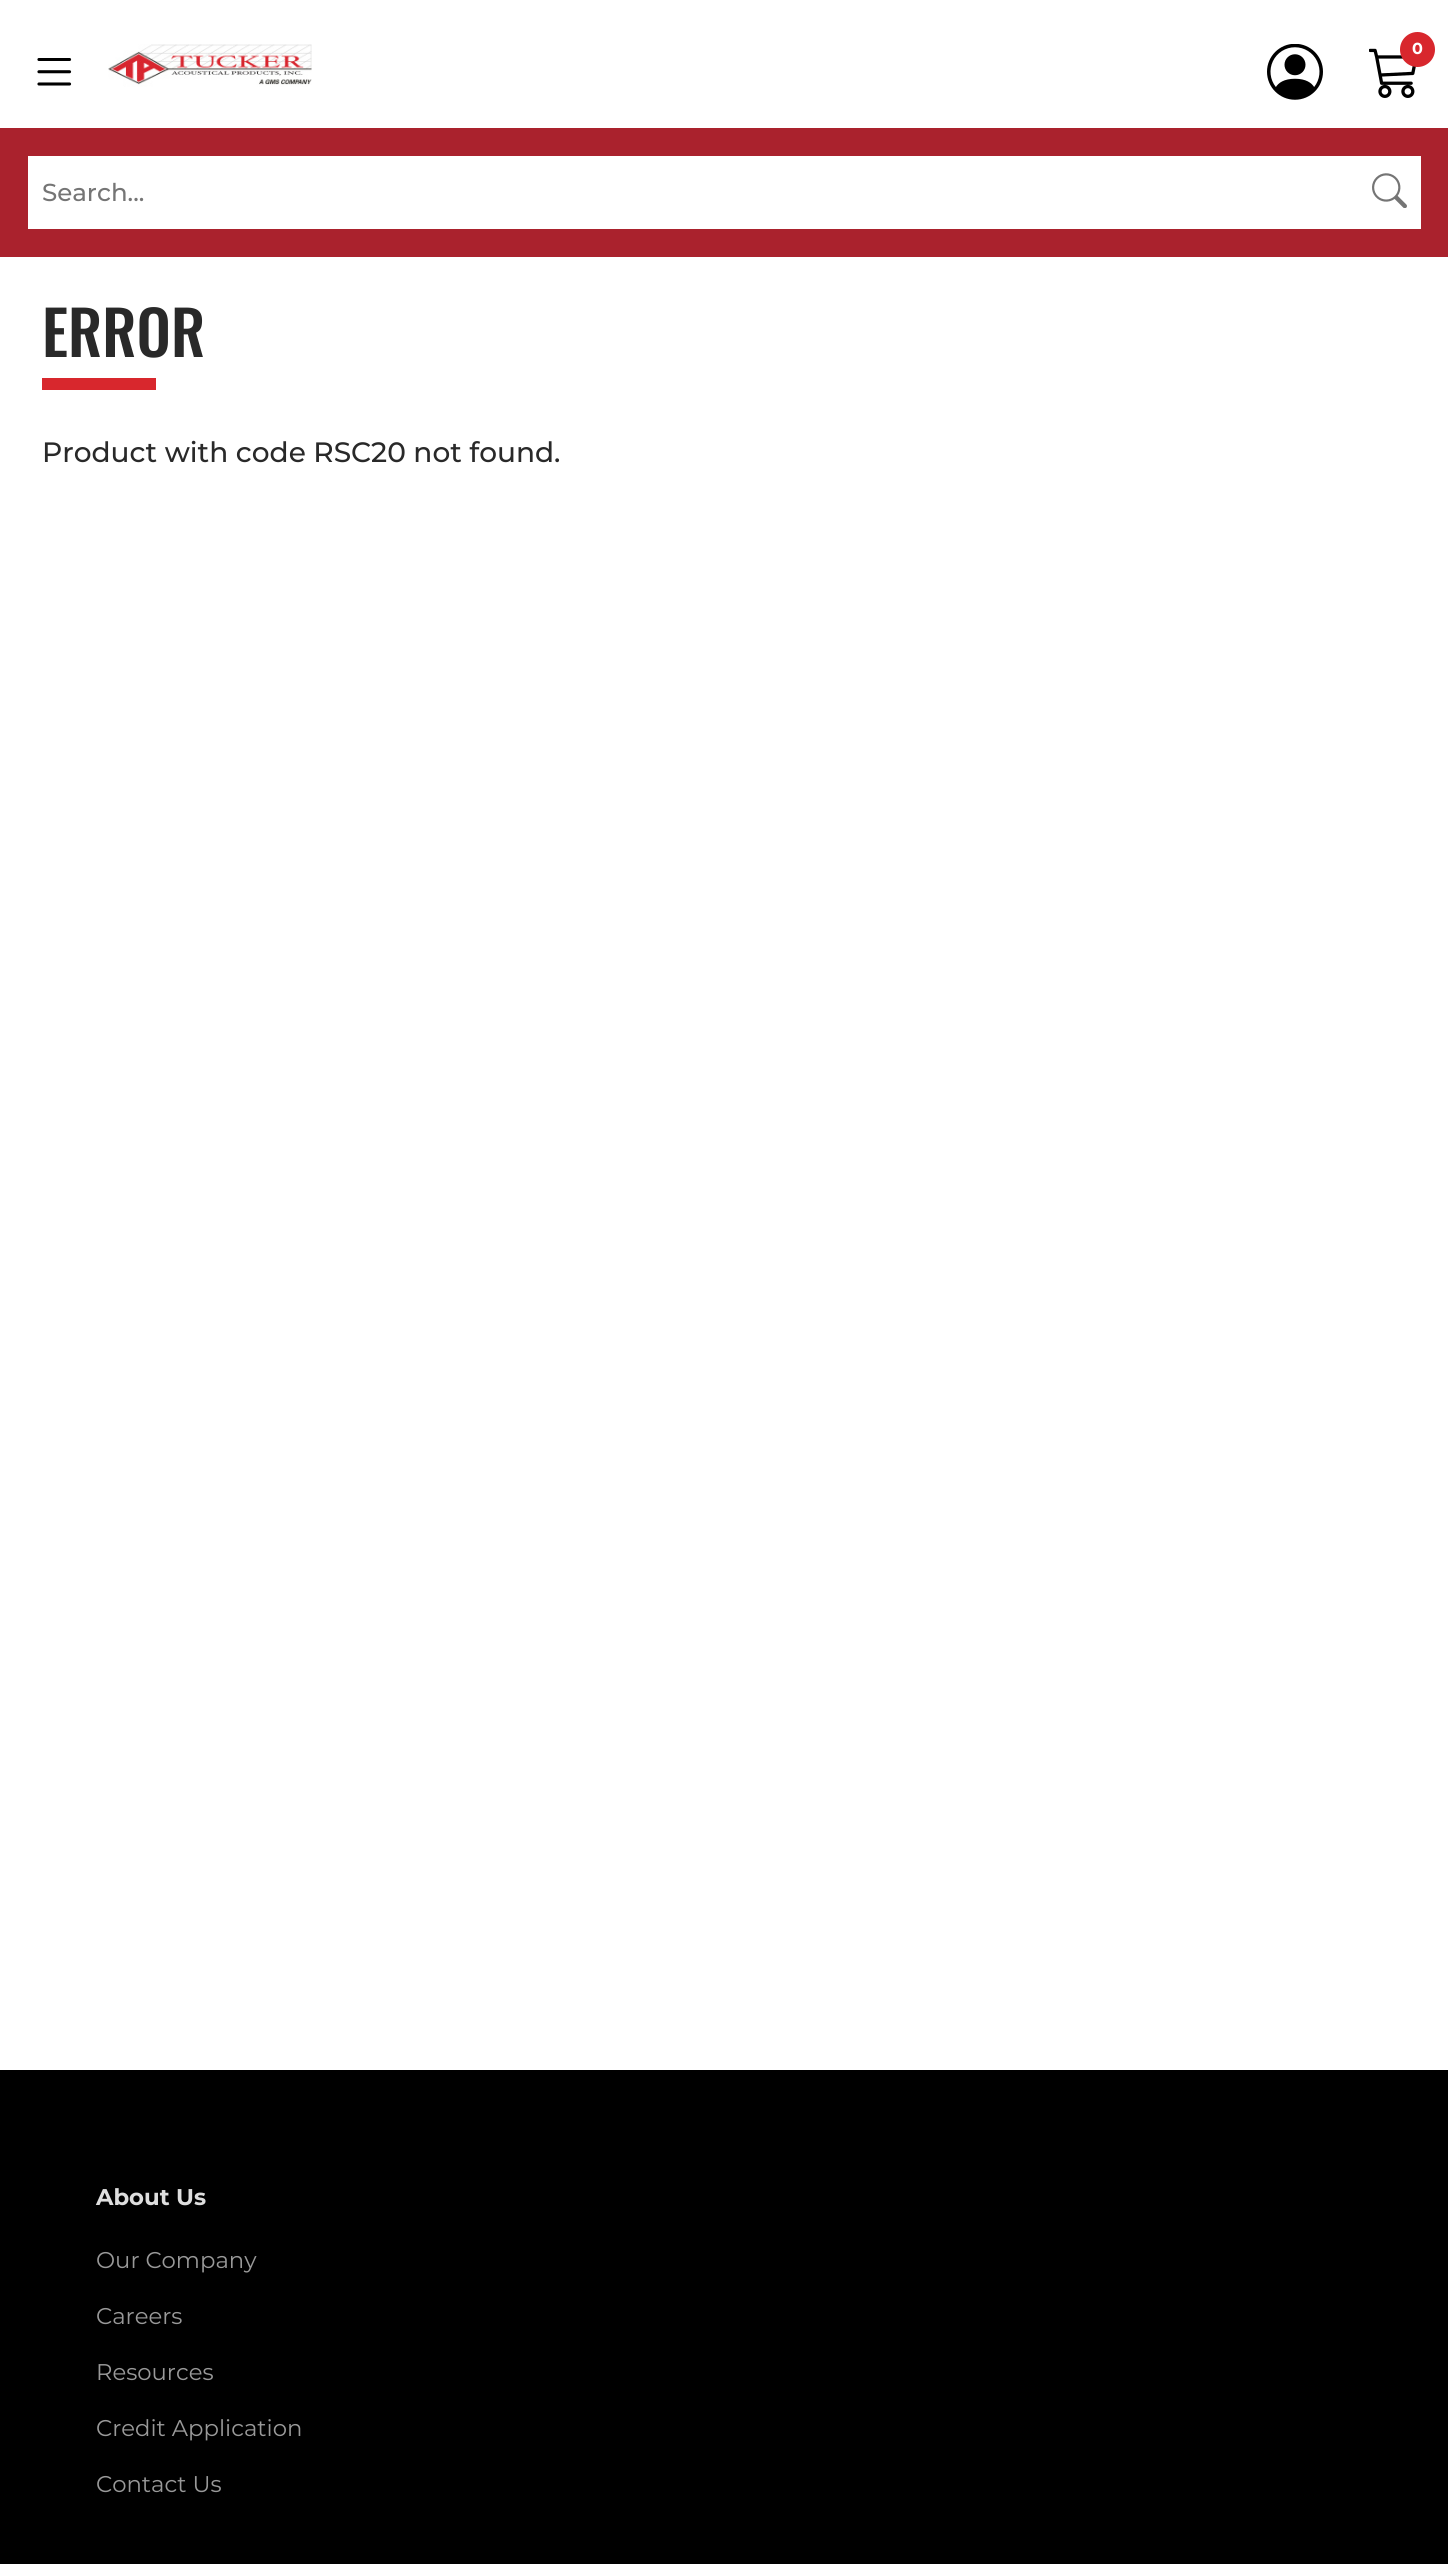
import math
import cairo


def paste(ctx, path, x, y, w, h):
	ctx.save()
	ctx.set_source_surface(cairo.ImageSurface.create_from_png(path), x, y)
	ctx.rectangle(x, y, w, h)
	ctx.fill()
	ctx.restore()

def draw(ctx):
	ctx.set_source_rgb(1, 1, 1)
	ctx.paint()
	paste(ctx, 'media/1.png', 37, 58, 35, 28)
	paste(ctx, 'media/2.png', 108, 44, 204, 43)
	paste(ctx, 'media/3.png', 1267, 44, 56, 56)
	paste(ctx, 'media/4.png', 1369, 48, 47, 50)
	ctx.set_source_rgb(0.847, 0.153, 0.176)
	ctx.arc(1417.5, 49.5, 17.5, 0, 2 * math.pi)
	ctx.fill()
	ctx.select_font_face('Montserrat', cairo.FONT_SLANT_NORMAL, cairo.FONT_WEIGHT_BOLD)
	ctx.set_font_size(16)
	ctx.set_source_rgb(1, 1, 1)
	ctx.move_to(1412, 54)
	ctx.show_text('0')
	ctx.set_source_rgb(0.667, 0.133, 0.176)
	ctx.rectangle(0, 128, 1448, 129)
	ctx.fill()
	ctx.set_source_rgb(1, 1, 1)
	ctx.rectangle(28, 156, 1393, 73)
	ctx.fill()
	ctx.select_font_face('Montserrat Medium')
	ctx.set_font_size(24.5)
	ctx.set_source_rgb(0.459, 0.459, 0.459)
	ctx.move_to(42, 201)
	ctx.show_text('Search...')
	paste(ctx, 'media/5.png', 1372, 173, 35, 35)
	ctx.select_font_face('Oswald Medium')
	ctx.set_font_size(61)
	ctx.set_source_rgb(0.161, 0.161, 0.161)
	ctx.move_to(42, 357)
	ctx.show_text('ERROR')
	ctx.set_source_rgb(0.847, 0.153, 0.176)
	ctx.rectangle(42, 378, 114, 12)
	ctx.fill()
	ctx.select_font_face('Montserrat Medium')
	ctx.set_font_size(28)
	ctx.set_source_rgb(0.161, 0.161, 0.161)
	ctx.move_to(42, 462)
	ctx.show_text('Product with code RSC20 not found.')
	ctx.set_source_rgb(0, 0, 0)
	ctx.rectangle(0, 2070, 1448, 494)
	ctx.fill()
	ctx.select_font_face('Montserrat', cairo.FONT_SLANT_NORMAL, cairo.FONT_WEIGHT_BOLD)
	ctx.set_font_size(22.75)
	ctx.set_source_rgb(0.871, 0.871, 0.871)
	ctx.move_to(96, 2205)
	ctx.show_text('About Us')
	ctx.select_font_face('Montserrat')
	ctx.set_source_rgb(0.6, 0.6, 0.6)
	for x, y, s in [
		(96, 2268, 'Our Company'),
		(96, 2324, 'Careers'),
		(96, 2380, 'Resources'),
		(96, 2436, 'Credit Application'),
		(96, 2492, 'Contact Us'),
	]:
		ctx.move_to(x, y)
		ctx.show_text(s)


surface = cairo.ImageSurface(cairo.FORMAT_RGB24, 1448, 2564)
ctx = cairo.Context(surface)
options = cairo.FontOptions()
options.set_hint_metrics(cairo.HINT_METRICS_OFF)
options.set_hint_style(cairo.HINT_STYLE_NONE)
ctx.set_font_options(options)
ctx.set_miter_limit(4)
draw(ctx)
surface.write_to_png('image.png')
